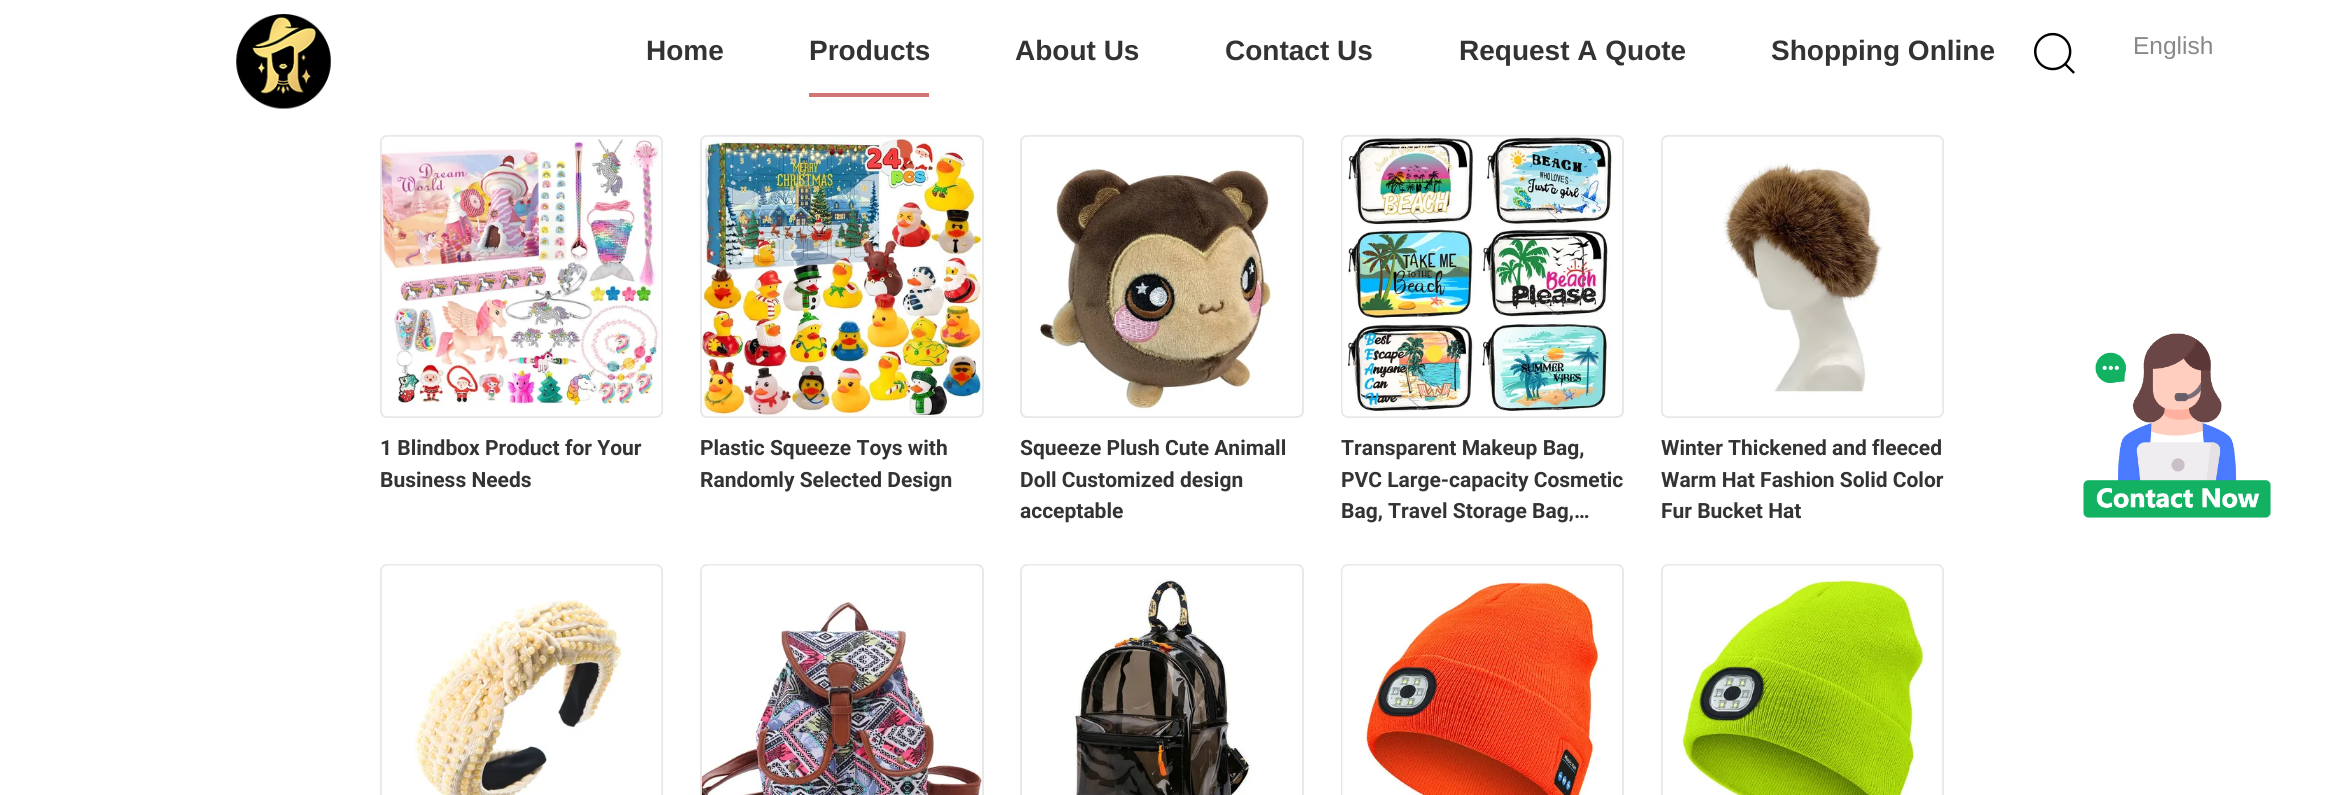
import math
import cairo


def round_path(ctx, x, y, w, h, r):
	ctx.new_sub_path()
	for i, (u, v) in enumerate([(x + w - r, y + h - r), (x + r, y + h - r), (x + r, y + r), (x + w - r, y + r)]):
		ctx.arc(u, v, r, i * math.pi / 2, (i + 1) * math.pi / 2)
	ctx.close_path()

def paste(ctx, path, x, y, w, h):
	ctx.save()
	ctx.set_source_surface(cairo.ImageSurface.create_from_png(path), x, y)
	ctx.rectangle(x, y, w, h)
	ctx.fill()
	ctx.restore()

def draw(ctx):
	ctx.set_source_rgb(1, 1, 1)
	ctx.paint()
	paste(ctx, 'media/1.png', 236, 14, 95, 95)
	ctx.select_font_face('Liberation Sans', cairo.FONT_SLANT_NORMAL, cairo.FONT_WEIGHT_BOLD)
	ctx.set_font_size(28)
	ctx.set_source_rgb(0.2, 0.2, 0.2)
	ctx.move_to(646, 60)
	ctx.show_text('Home')
	ctx.set_source_rgb(0.82, 0.455, 0.455)
	ctx.rectangle(809, 93, 120, 4)
	ctx.fill()
	ctx.set_source_rgb(0.2, 0.2, 0.2)
	for x, y, s in [
		(809, 60, 'Products'),
		(1015, 60, 'About Us'),
		(1225, 60, 'Contact Us'),
		(1459, 60, 'Request A Quote'),
		(1771, 60, 'Shopping Online'),
	]:
		ctx.move_to(x, y)
		ctx.show_text(s)
	paste(ctx, 'media/2.png', 2034, 32, 41, 42)
	ctx.select_font_face('Liberation Sans')
	ctx.set_font_size(24.5)
	ctx.set_source_rgb(0.533, 0.533, 0.533)
	ctx.move_to(2133, 54)
	ctx.show_text('English')
	round_path(ctx, 381, 136, 281, 281, 6)
	ctx.set_source_rgb(0.91, 0.91, 0.91)
	ctx.stroke()
	paste(ctx, 'media/3.png', 381, 136, 281, 281)
	ctx.select_font_face('Roboto', cairo.FONT_SLANT_NORMAL, cairo.FONT_WEIGHT_BOLD)
	ctx.set_font_size(21)
	ctx.set_source_rgb(0.2, 0.2, 0.2)
	ctx.move_to(380, 455)
	ctx.show_text('1 Blindbox Product for Your')
	ctx.move_to(380, 487)
	ctx.show_text('Business Needs')
	round_path(ctx, 701, 136, 282, 281, 6)
	ctx.set_source_rgb(0.91, 0.91, 0.91)
	ctx.stroke()
	paste(ctx, 'media/4.png', 702, 136, 280, 281)
	ctx.set_source_rgb(0.2, 0.2, 0.2)
	ctx.move_to(700, 455)
	ctx.show_text('Plastic Squeeze Toys with')
	ctx.move_to(700, 487)
	ctx.show_text('Randomly Selected Design')
	round_path(ctx, 1021, 136, 282, 281, 6)
	ctx.set_source_rgb(0.91, 0.91, 0.91)
	ctx.stroke()
	paste(ctx, 'media/5.png', 1028, 136, 268, 281)
	ctx.set_source_rgb(0.2, 0.2, 0.2)
	for x, y, s in [
		(1020, 455, 'Squeeze Plush Cute Animall'),
		(1020, 487, 'Doll Customized design'),
		(1020, 518, 'acceptable'),
	]:
		ctx.move_to(x, y)
		ctx.show_text(s)
	round_path(ctx, 1342, 136, 281, 281, 6)
	ctx.set_source_rgb(0.91, 0.91, 0.91)
	ctx.stroke()
	paste(ctx, 'media/6.png', 1342, 136, 274, 281)
	ctx.set_source_rgb(0.2, 0.2, 0.2)
	for x, y, s in [
		(1341, 455, 'Transparent Makeup Bag,'),
		(1341, 487, 'PVC Large-capacity Cosmetic'),
		(1341, 518, 'Bag, Travel Storage Bag,…'),
	]:
		ctx.move_to(x, y)
		ctx.show_text(s)
	round_path(ctx, 1662, 136, 281, 281, 6)
	ctx.set_source_rgb(0.91, 0.91, 0.91)
	ctx.stroke()
	paste(ctx, 'media/7.png', 1662, 136, 281, 281)
	ctx.set_source_rgb(0.2, 0.2, 0.2)
	for x, y, s in [
		(1661, 455, 'Winter Thickened and fleeced'),
		(1661, 487, 'Warm Hat Fashion Solid Color'),
		(1661, 518, 'Fur Bucket Hat'),
	]:
		ctx.move_to(x, y)
		ctx.show_text(s)
	round_path(ctx, 381, 565, 281, 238, 6)
	ctx.set_source_rgb(0.91, 0.91, 0.91)
	ctx.stroke()
	paste(ctx, 'media/8.png', 381, 565, 281, 230)
	round_path(ctx, 701, 565, 282, 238, 6)
	ctx.stroke()
	paste(ctx, 'media/9.png', 701, 565, 281, 230)
	round_path(ctx, 1021, 565, 282, 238, 6)
	ctx.stroke()
	paste(ctx, 'media/10.png', 1023, 565, 278, 230)
	round_path(ctx, 1342, 565, 281, 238, 6)
	ctx.stroke()
	paste(ctx, 'media/11.png', 1342, 565, 280, 230)
	round_path(ctx, 1662, 565, 281, 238, 6)
	ctx.stroke()
	paste(ctx, 'media/12.png', 1662, 565, 281, 230)
	paste(ctx, 'media/13.png', 2083, 333, 188, 185)


surface = cairo.ImageSurface(cairo.FORMAT_RGB24, 2325, 795)
ctx = cairo.Context(surface)
options = cairo.FontOptions()
options.set_hint_metrics(cairo.HINT_METRICS_OFF)
options.set_hint_style(cairo.HINT_STYLE_NONE)
ctx.set_font_options(options)
ctx.set_miter_limit(4)
draw(ctx)
surface.write_to_png('image.png')
